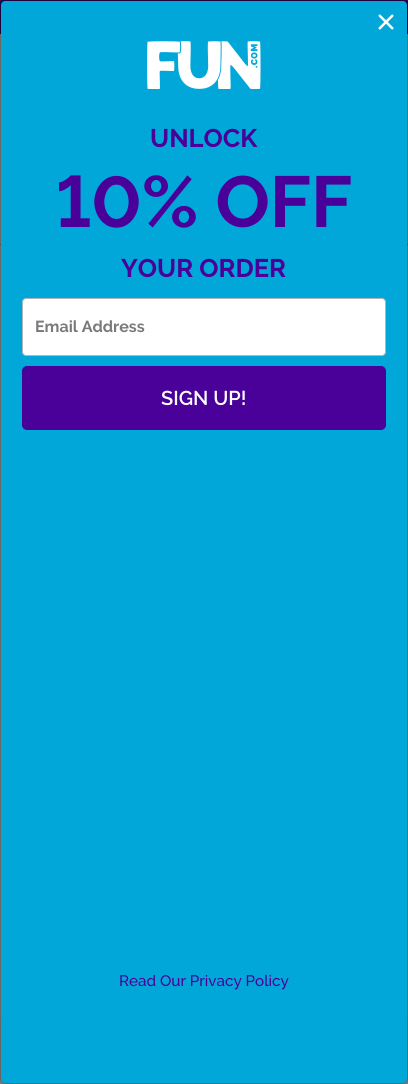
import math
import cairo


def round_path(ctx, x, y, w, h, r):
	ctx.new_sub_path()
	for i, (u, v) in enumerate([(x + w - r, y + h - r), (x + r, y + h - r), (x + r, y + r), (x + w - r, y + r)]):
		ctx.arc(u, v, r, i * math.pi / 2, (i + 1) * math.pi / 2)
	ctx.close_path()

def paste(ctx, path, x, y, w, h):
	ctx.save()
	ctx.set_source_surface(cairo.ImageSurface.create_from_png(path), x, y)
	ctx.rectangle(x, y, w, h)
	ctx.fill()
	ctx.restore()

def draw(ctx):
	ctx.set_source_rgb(0.502, 0.502, 0.502)
	ctx.paint()
	ctx.set_source_rgb(0.145, 0.004, 0.302)
	ctx.rectangle(0, 0, 408, 34)
	ctx.fill()
	ctx.set_source_rgb(0.341, 0.357, 0.373)
	ctx.rectangle(0, 244, 408, 1)
	ctx.fill()
	ctx.rectangle(0.5, 1019.5, 407, 64)
	ctx.set_source_rgb(0.482, 0.482, 0.482)
	ctx.set_line_width(1)
	ctx.stroke()
	ctx.set_source_rgb(0.008, 0.655, 0.851)
	round_path(ctx, 1, 1, 406, 1082, 4)
	ctx.fill()
	round_path(ctx, 0.5, 0.5, 407, 1083, 4.5)
	ctx.set_source_rgba(0, 0, 0, 0.18)
	ctx.stroke()
	paste(ctx, 'media/1.png', 378, 14, 16, 16)
	paste(ctx, 'media/2.png', 147, 41, 114, 48)
	ctx.select_font_face('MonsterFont', cairo.FONT_SLANT_NORMAL, cairo.FONT_WEIGHT_BOLD)
	ctx.set_font_size(25.5)
	ctx.set_source_rgb(0.286, 0.004, 0.6)
	ctx.move_to(150, 147)
	ctx.show_text('UNLOCK')
	ctx.set_font_size(72)
	ctx.move_to(56, 227)
	ctx.show_text('10% OFF')
	ctx.set_font_size(25.5)
	ctx.move_to(121, 277)
	ctx.show_text('YOUR ORDER')
	ctx.set_source_rgb(1, 1, 1)
	round_path(ctx, 22.5, 298.5, 363, 57, 3.5)
	ctx.fill_preserve()
	ctx.set_source_rgb(0.678, 0.71, 0.741)
	ctx.stroke()
	ctx.set_font_size(16)
	ctx.set_source_rgb(0.478, 0.478, 0.478)
	ctx.move_to(35, 332)
	ctx.show_text('Email Address')
	ctx.set_source_rgb(0.286, 0.004, 0.6)
	round_path(ctx, 22.5, 366.5, 363, 63, 4.5)
	ctx.fill_preserve()
	ctx.stroke()
	ctx.select_font_face('MonsterFont SemiBold')
	ctx.set_font_size(20)
	ctx.set_source_rgb(1, 1, 1)
	ctx.move_to(161, 405)
	ctx.show_text('SIGN UP!')
	ctx.select_font_face('MonsterFont Medium')
	ctx.set_font_size(15.25)
	ctx.set_source_rgb(0.286, 0.004, 0.6)
	ctx.move_to(119, 986)
	ctx.show_text('Read Our Privacy Policy')


surface = cairo.ImageSurface(cairo.FORMAT_RGB24, 408, 1084)
ctx = cairo.Context(surface)
options = cairo.FontOptions()
options.set_hint_metrics(cairo.HINT_METRICS_OFF)
options.set_hint_style(cairo.HINT_STYLE_NONE)
ctx.set_font_options(options)
ctx.set_miter_limit(4)
draw(ctx)
surface.write_to_png('image.png')
